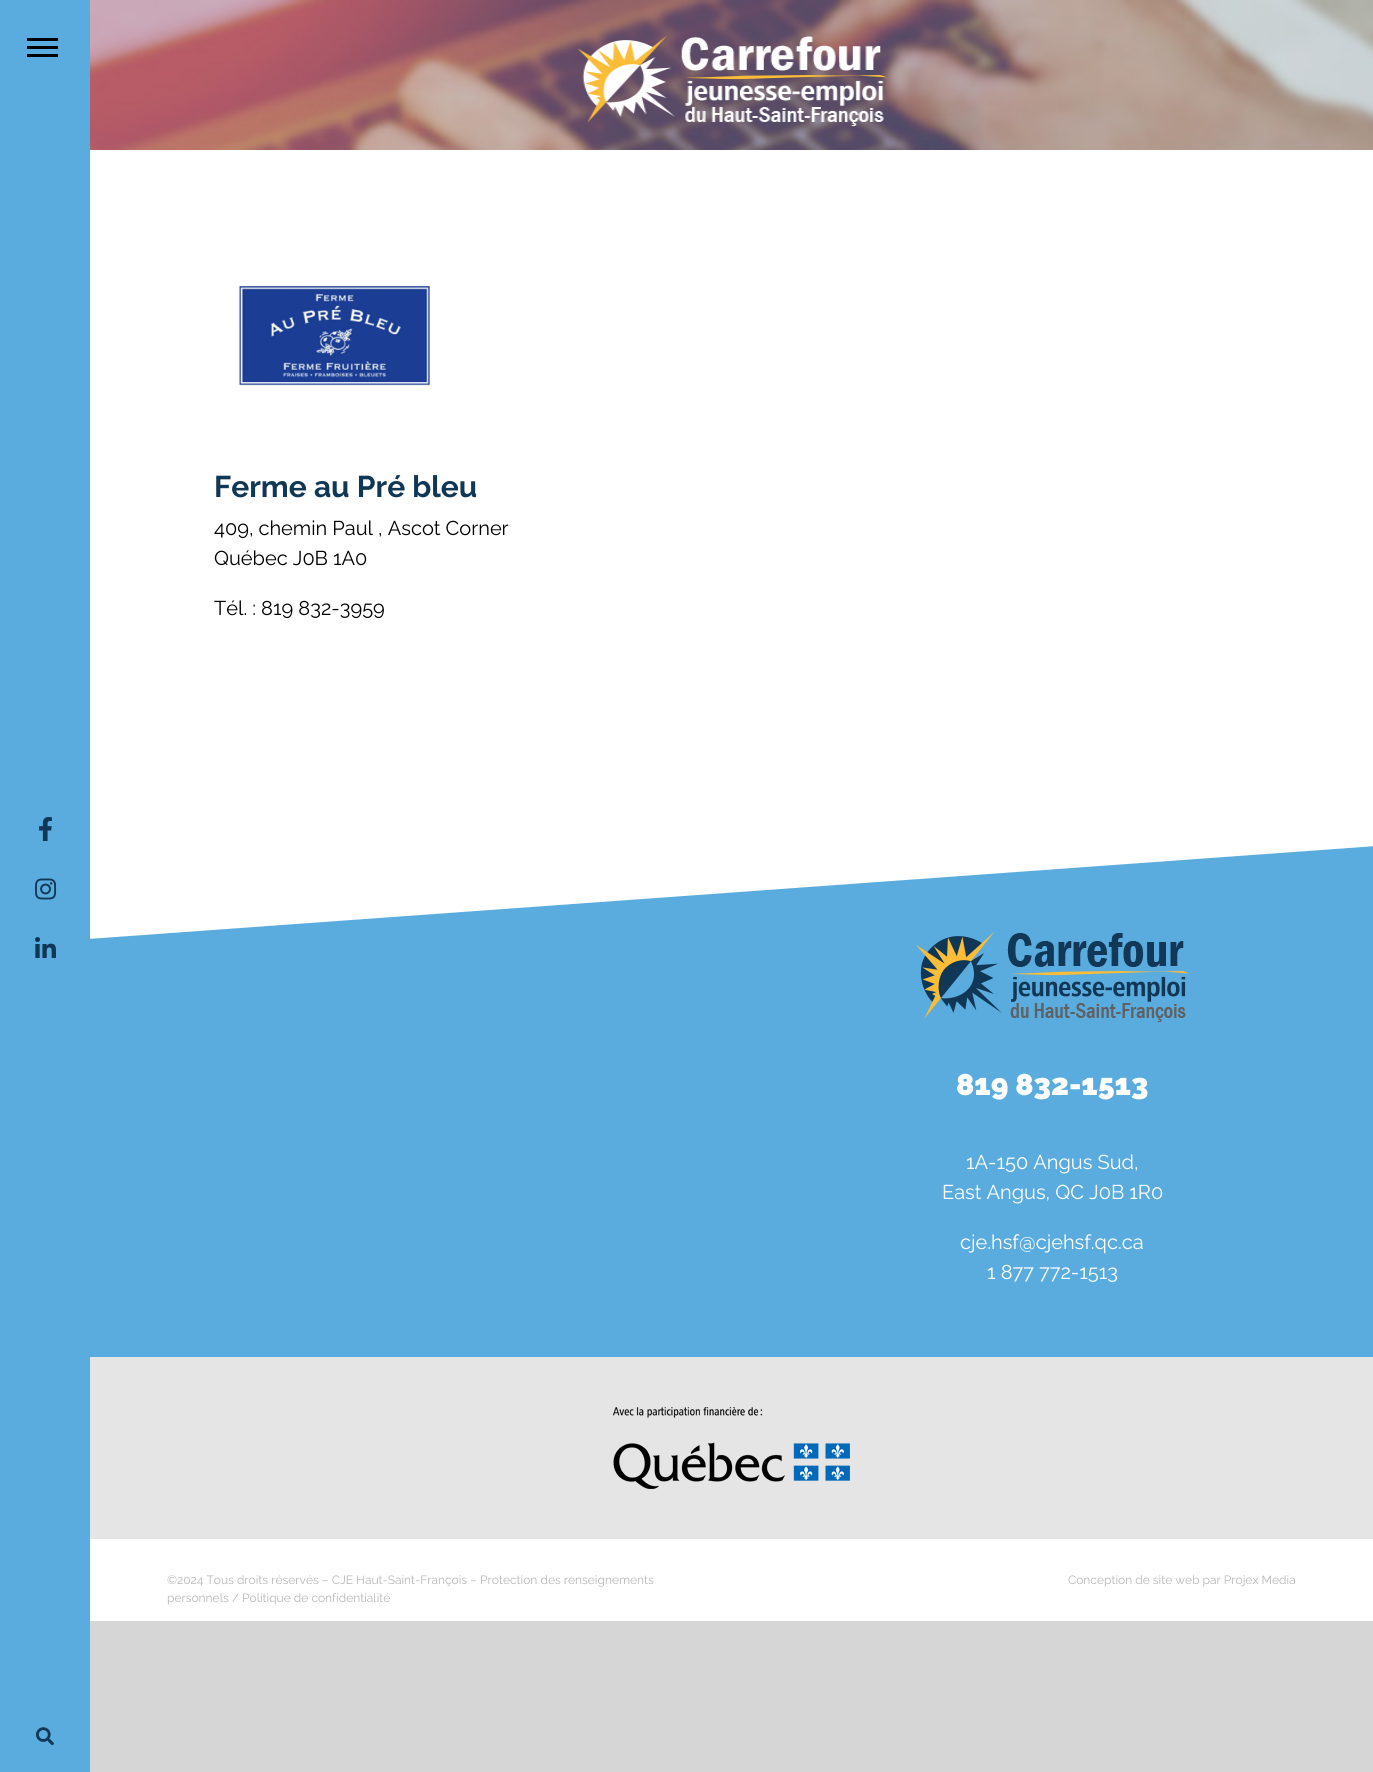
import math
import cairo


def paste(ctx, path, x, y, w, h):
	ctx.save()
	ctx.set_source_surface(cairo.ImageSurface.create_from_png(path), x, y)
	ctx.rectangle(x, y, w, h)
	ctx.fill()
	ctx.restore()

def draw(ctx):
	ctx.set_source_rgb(0.843, 0.839, 0.839)
	ctx.paint()
	ctx.set_source_rgb(1, 1, 1)
	ctx.rectangle(90, 150, 1283, 1471)
	ctx.fill()
	ctx.set_source_rgb(0.353, 0.675, 0.871)
	ctx.rectangle(90, 846, 1283, 511)
	ctx.fill()
	ctx.set_source_rgb(1, 1, 1)
	ctx.new_path()
	ctx.move_to(46, 942)
	ctx.line_to(46, 843)
	ctx.line_to(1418, 843)
	ctx.close_path()
	ctx.fill()
	ctx.set_source_rgb(0.353, 0.675, 0.871)
	ctx.rectangle(0, 0, 90, 1772)
	ctx.fill()
	ctx.set_source_rgb(0, 0, 0)
	ctx.rectangle(27, 46, 31, 3)
	ctx.rectangle(27, 38, 31, 3)
	ctx.rectangle(27, 54, 31, 3)
	ctx.fill()
	paste(ctx, 'media/1.png', 39, 817, 13, 24)
	paste(ctx, 'media/2.png', 35, 878, 22, 22)
	paste(ctx, 'media/3.png', 35, 937, 21, 21)
	paste(ctx, 'media/4.png', 36, 1727, 18, 19)
	paste(ctx, 'media/5.png', 90, 0, 1283, 150)
	paste(ctx, 'media/6.png', 578, 36, 309, 90)
	paste(ctx, 'media/7.png', 238, 285, 192, 101)
	ctx.select_font_face('Raleway', cairo.FONT_SLANT_NORMAL, cairo.FONT_WEIGHT_BOLD)
	ctx.set_font_size(30)
	ctx.set_source_rgb(0.067, 0.216, 0.337)
	ctx.move_to(214, 497)
	ctx.show_text('Ferme au Pré bleu')
	ctx.select_font_face('Raleway')
	ctx.set_font_size(20)
	ctx.set_source_rgb(0, 0, 0)
	for x, y, s in [
		(214, 535, '409, chemin Paul , Ascot Corner'),
		(214, 565, 'Québec J0B 1A0'),
		(214, 615, 'Tél. : 819 832-3959'),
	]:
		ctx.move_to(x, y)
		ctx.show_text(s)
	paste(ctx, 'media/8.png', 916, 932, 273, 90)
	ctx.select_font_face('Raleway Black')
	ctx.set_font_size(30)
	ctx.set_source_rgb(1, 1, 1)
	ctx.move_to(956, 1095)
	ctx.show_text('819 832-1513')
	ctx.select_font_face('Raleway')
	ctx.set_font_size(20)
	for x, y, s in [
		(966, 1169, '1A-150 Angus Sud,'),
		(942, 1199, 'East Angus, QC J0B 1R0'),
		(960, 1249, 'cje.hsf@cjehsf.qc.ca'),
		(987, 1279, '1 877 772-1513'),
	]:
		ctx.move_to(x, y)
		ctx.show_text(s)
	ctx.set_source_rgb(0.898, 0.898, 0.898)
	ctx.rectangle(90, 1357, 1283, 182)
	ctx.fill()
	paste(ctx, 'media/9.png', 613, 1407, 237, 82)
	ctx.set_font_size(12)
	ctx.set_source_rgb(0.718, 0.718, 0.718)
	for x, y, s in [
		(167, 1584, '©2024 Tous droits réservés – CJE Haut-Saint-François – Protection des renseignements'),
		(167, 1602, 'personnels / Politique de confidentialité'),
		(1068, 1584, 'Conception de site web par Projex Media'),
	]:
		ctx.move_to(x, y)
		ctx.show_text(s)


surface = cairo.ImageSurface(cairo.FORMAT_RGB24, 1373, 1772)
ctx = cairo.Context(surface)
options = cairo.FontOptions()
options.set_hint_metrics(cairo.HINT_METRICS_OFF)
options.set_hint_style(cairo.HINT_STYLE_NONE)
ctx.set_font_options(options)
ctx.set_miter_limit(4)
draw(ctx)
surface.write_to_png('image.png')
